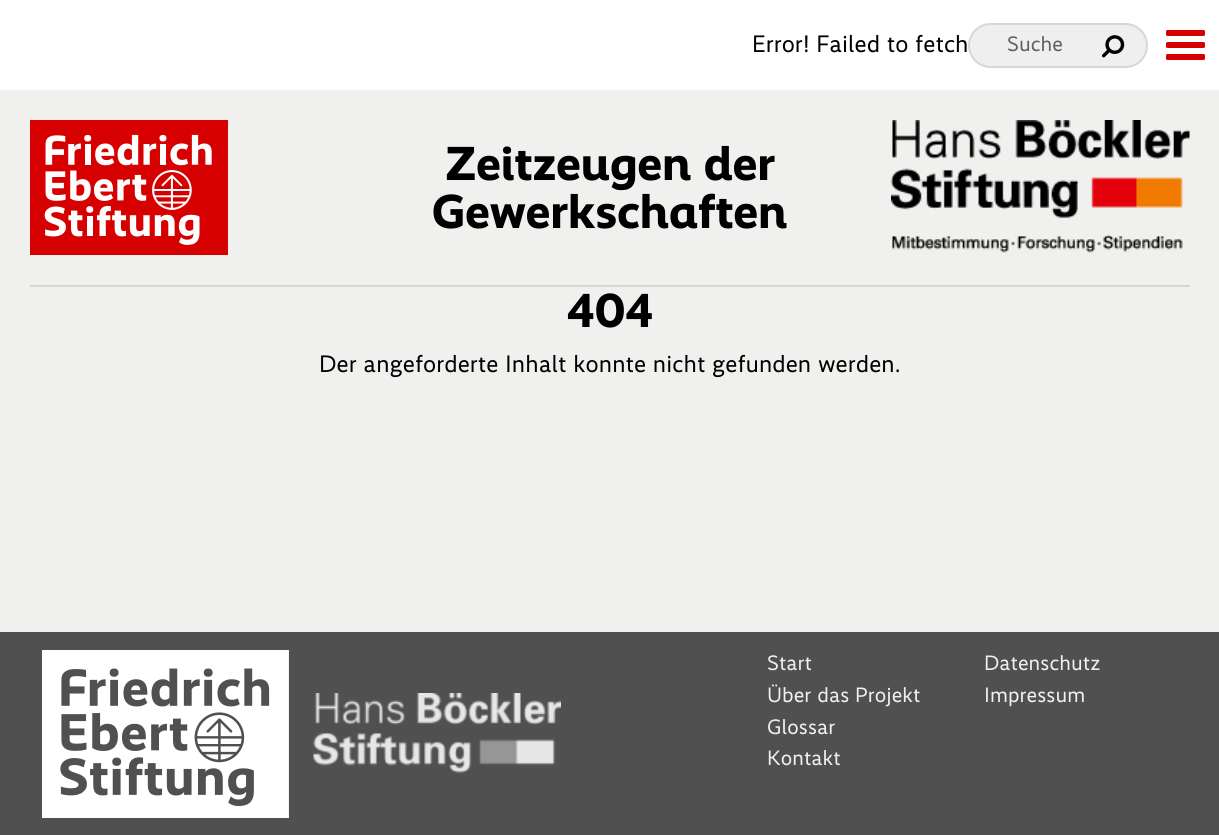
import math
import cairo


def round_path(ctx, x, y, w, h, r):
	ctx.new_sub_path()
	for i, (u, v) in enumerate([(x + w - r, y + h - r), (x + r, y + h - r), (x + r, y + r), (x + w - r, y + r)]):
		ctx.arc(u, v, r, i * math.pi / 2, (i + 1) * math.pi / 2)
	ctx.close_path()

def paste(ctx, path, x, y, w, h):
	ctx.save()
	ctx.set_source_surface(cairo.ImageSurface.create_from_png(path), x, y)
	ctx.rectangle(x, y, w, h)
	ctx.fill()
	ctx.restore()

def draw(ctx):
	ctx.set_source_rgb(0.941, 0.941, 0.933)
	ctx.paint()
	ctx.set_source_rgb(1, 1, 1)
	ctx.rectangle(0, 0, 1219, 90)
	ctx.fill()
	ctx.select_font_face('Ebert')
	ctx.set_font_size(24)
	ctx.set_source_rgb(0, 0, 0)
	ctx.move_to(752, 52)
	ctx.show_text('Error! Failed to fetch')
	ctx.set_source_rgb(0.937, 0.937, 0.937)
	round_path(ctx, 969, 24, 178, 43, 21.5)
	ctx.fill_preserve()
	ctx.set_source_rgb(0.839, 0.839, 0.839)
	ctx.stroke()
	ctx.set_font_size(21)
	ctx.set_source_rgb(0.376, 0.376, 0.376)
	ctx.move_to(1007, 51)
	ctx.show_text('Suche')
	paste(ctx, 'media/1.png', 1102, 35, 23, 23)
	ctx.set_source_rgb(0.843, 0, 0)
	round_path(ctx, 1166, 30, 39, 6, 1.5)
	ctx.fill()
	round_path(ctx, 1166, 42, 39, 6, 1.5)
	ctx.fill()
	round_path(ctx, 1166, 54, 39, 6, 1.5)
	ctx.fill()
	ctx.set_source_rgb(0.839, 0.839, 0.839)
	ctx.rectangle(30, 285, 1160, 2)
	ctx.fill()
	paste(ctx, 'media/2.png', 30, 120, 198, 135)
	ctx.select_font_face('Ebert', cairo.FONT_SLANT_NORMAL, cairo.FONT_WEIGHT_BOLD)
	ctx.set_font_size(48)
	ctx.set_source_rgb(0, 0, 0)
	ctx.move_to(445, 180)
	ctx.show_text('Zeitzeugen der')
	ctx.move_to(432, 228)
	ctx.show_text('Gewerkschaften')
	paste(ctx, 'media/3.png', 891, 120, 299, 133)
	ctx.move_to(567, 327)
	ctx.show_text('404')
	ctx.select_font_face('Ebert')
	ctx.set_font_size(24)
	ctx.move_to(319, 372)
	ctx.show_text('Der angeforderte Inhalt konnte nicht gefunden werden.')
	ctx.set_source_rgb(0.314, 0.314, 0.314)
	ctx.rectangle(0, 632, 1219, 203)
	ctx.fill()
	paste(ctx, 'media/4.png', 42, 650, 247, 168)
	paste(ctx, 'media/5.png', 313, 693, 248, 80)
	ctx.set_font_size(21)
	ctx.set_source_rgb(0.941, 0.941, 0.933)
	for x, y, s in [
		(767, 670, 'Start'),
		(767, 702, 'Über das Projekt'),
		(767, 734, 'Glossar'),
		(767, 765, 'Kontakt'),
		(984, 670, 'Datenschutz'),
		(984, 702, 'Impressum'),
	]:
		ctx.move_to(x, y)
		ctx.show_text(s)


surface = cairo.ImageSurface(cairo.FORMAT_RGB24, 1219, 835)
ctx = cairo.Context(surface)
options = cairo.FontOptions()
options.set_hint_metrics(cairo.HINT_METRICS_OFF)
options.set_hint_style(cairo.HINT_STYLE_NONE)
ctx.set_font_options(options)
ctx.set_miter_limit(4)
draw(ctx)
surface.write_to_png('image.png')
